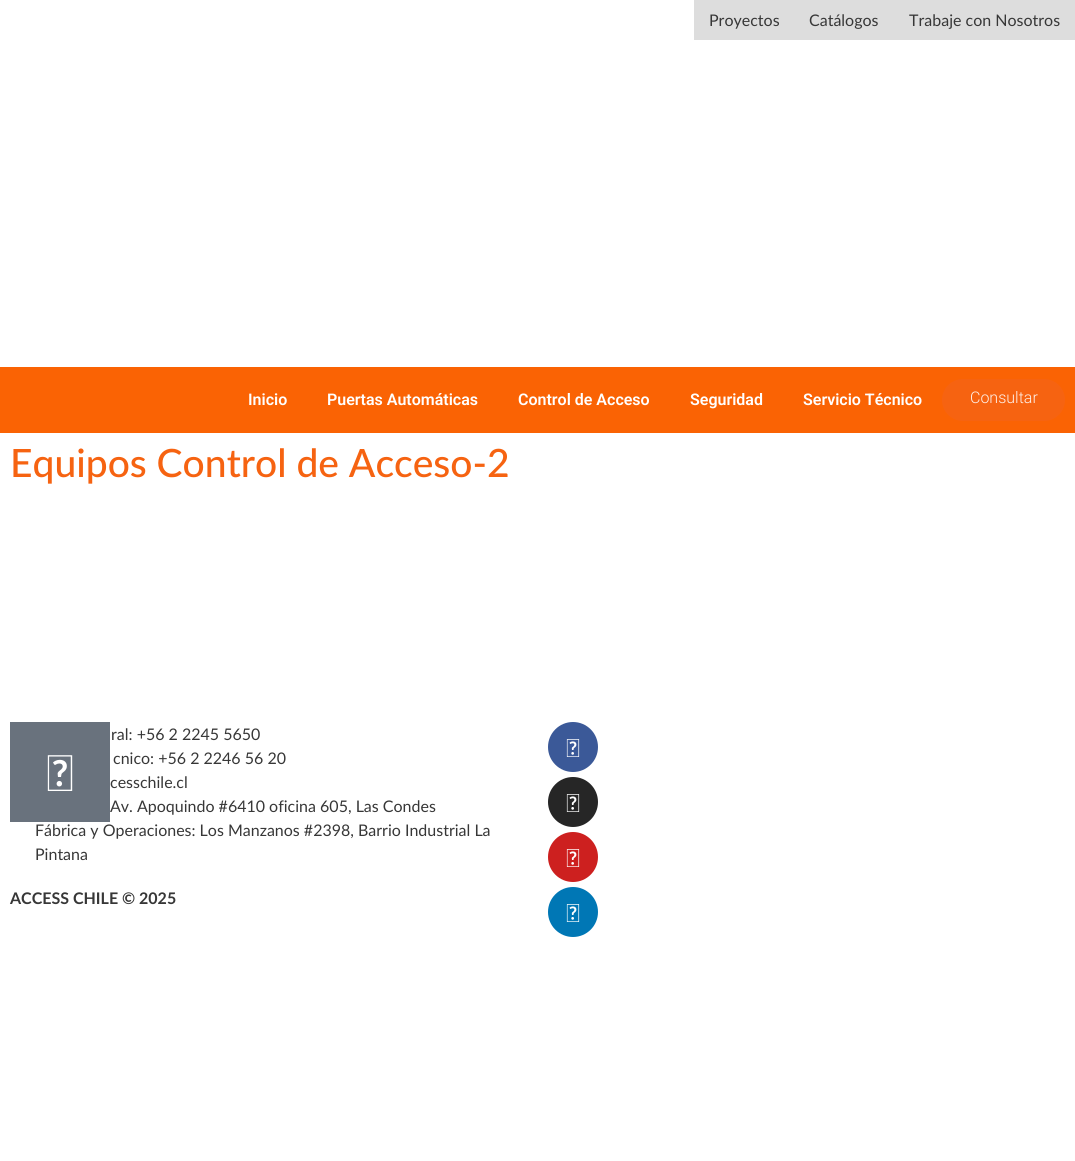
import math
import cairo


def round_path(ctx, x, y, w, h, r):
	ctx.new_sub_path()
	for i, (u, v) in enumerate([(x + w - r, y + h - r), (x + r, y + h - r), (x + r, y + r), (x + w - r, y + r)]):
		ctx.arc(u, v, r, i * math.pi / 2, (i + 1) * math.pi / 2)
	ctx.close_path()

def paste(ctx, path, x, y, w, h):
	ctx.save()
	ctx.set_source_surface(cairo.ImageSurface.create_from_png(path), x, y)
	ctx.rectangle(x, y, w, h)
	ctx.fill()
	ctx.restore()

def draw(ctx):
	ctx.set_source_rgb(1, 1, 1)
	ctx.paint()
	ctx.set_source_rgb(0.867, 0.867, 0.867)
	ctx.rectangle(694, 0, 381, 40)
	ctx.fill()
	ctx.select_font_face('Lato')
	ctx.set_font_size(16)
	ctx.set_source_rgb(0.216, 0.216, 0.216)
	for x, y, s in [
		(709, 26, 'Proyectos'),
		(809, 26, 'Catálogos'),
		(909, 26, 'Trabaje con Nosotros'),
	]:
		ctx.move_to(x, y)
		ctx.show_text(s)
	ctx.set_source_rgb(0.98, 0.388, 0.016)
	ctx.rectangle(0, 367, 1075, 66)
	ctx.fill()
	ctx.select_font_face('Roboto SemiBold')
	ctx.set_source_rgb(1, 1, 1)
	for x, y, s in [
		(248, 405, 'Inicio'),
		(327, 405, 'Puertas Automáticas'),
		(518, 405, 'Control de Acceso'),
		(690, 405, 'Seguridad'),
		(803, 405, 'Servicio Técnico'),
	]:
		ctx.move_to(x, y)
		ctx.show_text(s)
	ctx.set_source_rgb(0.961, 0.388, 0.067)
	round_path(ctx, 942, 379, 123, 42, 21)
	ctx.fill()
	ctx.select_font_face('Roboto Light')
	ctx.set_source_rgb(0.996, 0.937, 0.906)
	ctx.move_to(970, 403)
	ctx.show_text('Consultar')
	ctx.select_font_face('Lato Medium')
	ctx.set_font_size(39)
	ctx.set_source_rgb(0.961, 0.388, 0.067)
	ctx.move_to(10, 477)
	ctx.show_text('Equipos Control de Acceso-2')
	ctx.set_source_rgb(0.412, 0.447, 0.49)
	ctx.rectangle(10, 722, 100, 100)
	ctx.fill()
	paste(ctx, 'media/1.png', 47, 755, 26, 36)
	ctx.select_font_face('Lato')
	ctx.set_font_size(16)
	ctx.set_source_rgb(0.216, 0.216, 0.216)
	for x, y, s in [
		(111, 740, 'ral: +56 2 2245 5650'),
		(113, 764, 'cnico: +56 2 2246 56 20'),
		(110, 788, 'cesschile.cl'),
		(110, 812, 'Av. Apoquindo #6410 oficina 605, Las Condes'),
		(35, 836, 'Fábrica y Operaciones: Los Manzanos #2398, Barrio Industrial La'),
		(35, 860, 'Pintana'),
	]:
		ctx.move_to(x, y)
		ctx.show_text(s)
	ctx.select_font_face('Lato', cairo.FONT_SLANT_NORMAL, cairo.FONT_WEIGHT_BOLD)
	ctx.move_to(10, 904)
	ctx.show_text('ACCESS CHILE © 2025')
	ctx.set_source_rgb(0.231, 0.349, 0.596)
	ctx.new_path()
	ctx.arc(573, 747, 25, 0, 2 * math.pi)
	ctx.fill()
	paste(ctx, 'media/2.png', 566, 739, 14, 18)
	ctx.set_source_rgb(0.149, 0.149, 0.149)
	ctx.arc(573, 802, 25, 0, 2 * math.pi)
	ctx.fill()
	paste(ctx, 'media/3.png', 566, 794, 14, 18)
	ctx.set_source_rgb(0.804, 0.125, 0.122)
	ctx.arc(573, 857, 25, 0, 2 * math.pi)
	ctx.fill()
	paste(ctx, 'media/4.png', 566, 849, 14, 18)
	ctx.set_source_rgb(0, 0.467, 0.71)
	ctx.arc(573, 912, 25, 0, 2 * math.pi)
	ctx.fill()
	paste(ctx, 'media/5.png', 566, 904, 14, 18)


surface = cairo.ImageSurface(cairo.FORMAT_RGB24, 1075, 1161)
ctx = cairo.Context(surface)
options = cairo.FontOptions()
options.set_hint_metrics(cairo.HINT_METRICS_OFF)
options.set_hint_style(cairo.HINT_STYLE_NONE)
ctx.set_font_options(options)
ctx.set_miter_limit(4)
draw(ctx)
surface.write_to_png('image.png')
